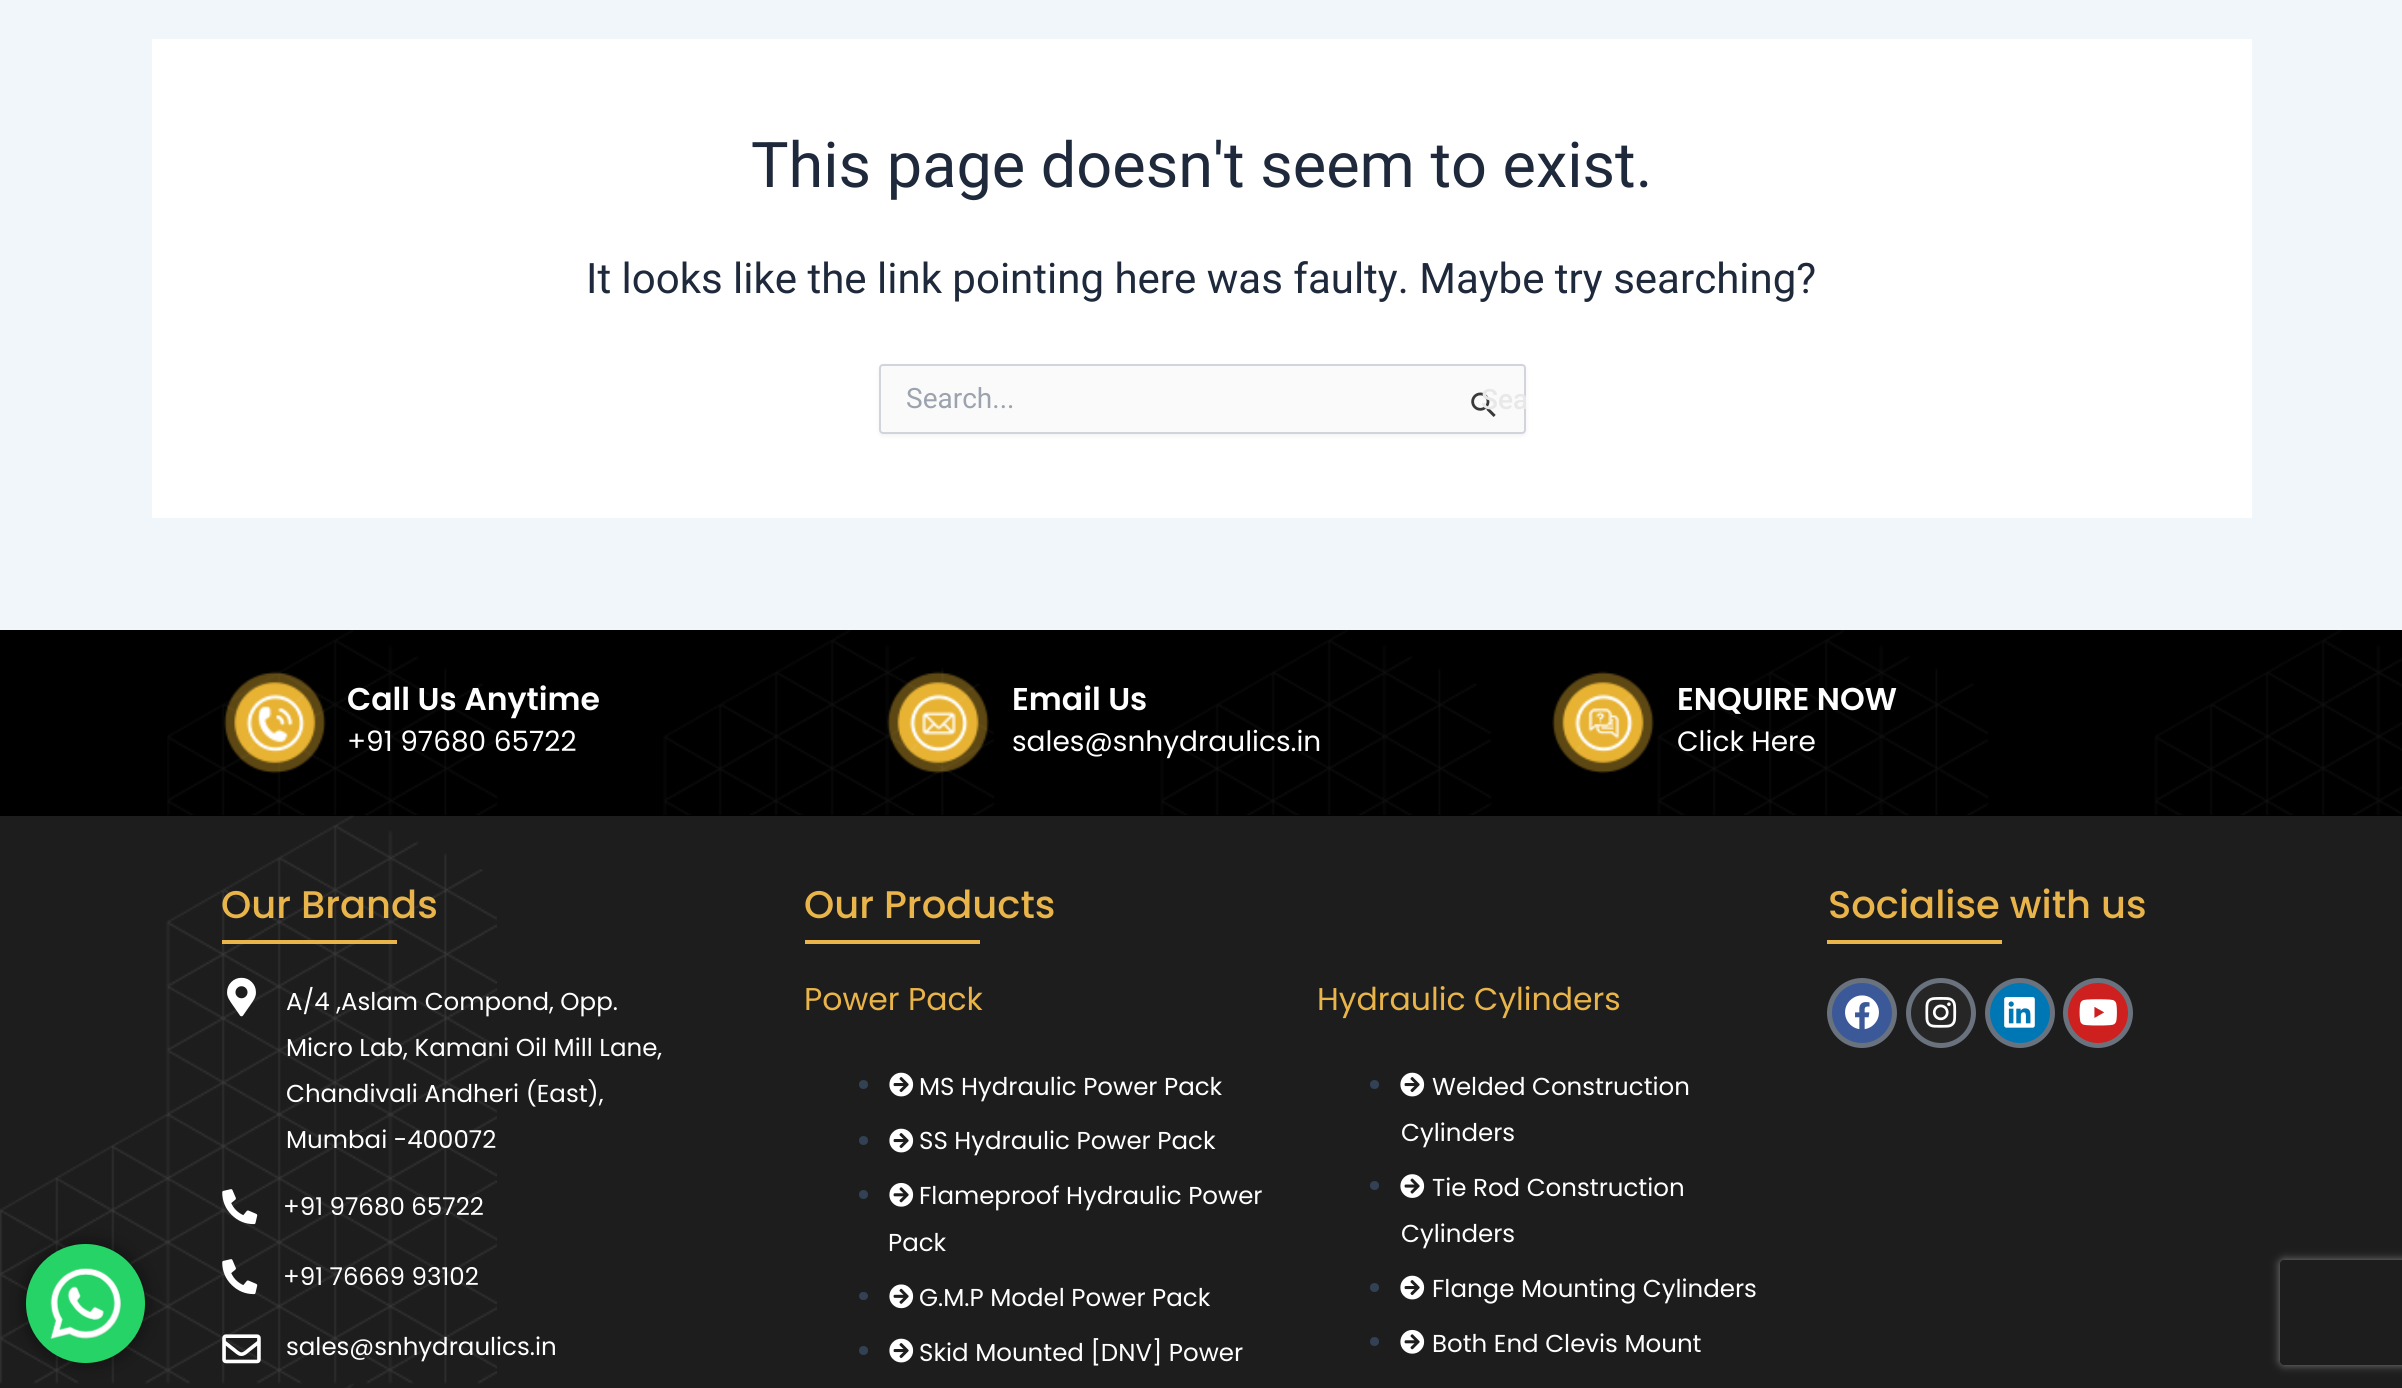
import math
import cairo


def round_path(ctx, x, y, w, h, r):
	ctx.new_sub_path()
	for i, (u, v) in enumerate([(x + w - r, y + h - r), (x + r, y + h - r), (x + r, y + r), (x + w - r, y + r)]):
		ctx.arc(u, v, r, i * math.pi / 2, (i + 1) * math.pi / 2)
	ctx.close_path()

def blur_box(ctx, x, y, w, h, r, blur, alpha):
	ctx.push_group_with_content(cairo.CONTENT_ALPHA)
	ctx.set_operator(cairo.OPERATOR_SOURCE)
	for i in range(15, -16, -2):
		e = blur * i / 6
		if min(w, h) + 2 * e > 0:
			ctx.set_source_rgba(0, 0, 0, alpha * math.erfc((i - 1) / 8.5) / 2)
			round_path(ctx, x - e, y - e, w + 2 * e, h + 2 * e, max(0, min(r + e + blur * .6, min(w, h) / 2 + e)))
			ctx.fill()
	ctx.mask(ctx.pop_group())

def paste(ctx, path, x, y, w, h):
	ctx.save()
	ctx.set_source_surface(cairo.ImageSurface.create_from_png(path), x, y)
	ctx.rectangle(x, y, w, h)
	ctx.fill()
	ctx.restore()

def draw(ctx):
	ctx.set_source_rgb(0.941, 0.961, 0.98)
	ctx.paint()
	ctx.set_source_rgb(0.114, 0.114, 0.118)
	ctx.rectangle(0, 816, 2402, 572)
	ctx.fill()
	ctx.set_source_rgb(0, 0, 0)
	ctx.rectangle(0, 630, 2402, 186)
	ctx.fill()
	paste(ctx, 'media/7.png', 0, 815, 497, 573)
	ctx.set_source_rgb(0, 0, 0)
	blur_box(ctx, 26, 1244, 119, 119, 59.5, 9.5, 0.5)
	ctx.set_source_rgb(0.145, 0.827, 0.4)
	ctx.arc(85.5, 1303.5, 59.5, 0, 2 * math.pi)
	ctx.fill()
	paste(ctx, 'media/1.png', 50, 1268, 71, 71)
	ctx.set_source_rgb(1, 1, 1)
	ctx.rectangle(152, 39, 2100, 479)
	ctx.fill()
	ctx.select_font_face('Roboto')
	ctx.set_font_size(63)
	ctx.set_source_rgb(0.118, 0.161, 0.231)
	ctx.move_to(751, 187)
	ctx.show_text('This page doesn\'t seem to exist.')
	ctx.set_font_size(42)
	ctx.move_to(586, 293)
	ctx.show_text('It looks like the link pointing here was faulty. Maybe try searching?')
	ctx.set_source_rgb(0, 0, 0)
	blur_box(ctx, 879, 366, 647, 70, 4, 2, 0.05)
	ctx.set_source_rgb(0.98, 0.98, 0.98)
	round_path(ctx, 880, 365, 645, 68, 3)
	ctx.fill_preserve()
	ctx.set_source_rgb(0.82, 0.835, 0.859)
	ctx.stroke()
	ctx.set_font_size(28)
	ctx.set_source_rgb(0.612, 0.639, 0.686)
	ctx.move_to(906, 408)
	ctx.show_text('Search...')
	paste(ctx, 'media/2.png', 1471, 392, 25, 25)
	ctx.save()
	round_path(ctx, 1447, 364, 79, 74, 4)
	ctx.clip()
	ctx.select_font_face('Roboto Medium')
	ctx.set_source_rgb(0.91, 0.91, 0.914)
	ctx.move_to(1481, 409)
	ctx.show_text('Sea')
	ctx.restore()
	paste(ctx, 'media/3.png', 167, 630, 2235, 185)
	paste(ctx, 'media/4.png', 224, 671, 102, 103)
	ctx.select_font_face('Poppins SemiBold')
	ctx.set_font_size(31.5)
	ctx.set_source_rgb(1, 1, 1)
	ctx.move_to(347, 710)
	ctx.show_text('Call Us Anytime')
	ctx.select_font_face('Poppins')
	ctx.set_font_size(28)
	ctx.move_to(347, 751)
	ctx.show_text('+91 97680 65722')
	paste(ctx, 'media/5.png', 887, 671, 102, 103)
	ctx.select_font_face('Poppins SemiBold')
	ctx.set_font_size(31.5)
	ctx.move_to(1012, 710)
	ctx.show_text('Email Us')
	ctx.select_font_face('Poppins')
	ctx.set_font_size(28)
	ctx.move_to(1012, 751)
	ctx.show_text('sales@snhydraulics.in')
	paste(ctx, 'media/6.png', 1552, 671, 102, 103)
	ctx.select_font_face('Poppins SemiBold')
	ctx.set_font_size(31.5)
	ctx.move_to(1677, 710)
	ctx.show_text('ENQUIRE NOW')
	ctx.select_font_face('Poppins')
	ctx.set_font_size(28)
	ctx.move_to(1677, 751)
	ctx.show_text('Click Here')
	ctx.select_font_face('Poppins Medium')
	ctx.set_font_size(38.5)
	ctx.set_source_rgb(0.914, 0.706, 0.286)
	ctx.move_to(221, 918)
	ctx.show_text('Our Brands')
	ctx.rectangle(222, 940, 175, 4)
	ctx.fill()
	paste(ctx, 'media/8.png', 227, 977, 29, 40)
	ctx.select_font_face('Poppins')
	ctx.set_font_size(24.5)
	ctx.set_source_rgb(1, 1, 1)
	for x, y, s in [
		(286, 1010, 'A/4 ,Aslam Compond, Opp.'),
		(286, 1056, 'Micro Lab, Kamani Oil Mill Lane,'),
		(286, 1102, 'Chandivali Andheri (East),'),
		(286, 1148, 'Mumbai -400072'),
	]:
		ctx.move_to(x, y)
		ctx.show_text(s)
	paste(ctx, 'media/9.png', 222, 1189, 36, 36)
	ctx.move_to(283, 1215)
	ctx.show_text('+91 97680 65722')
	paste(ctx, 'media/10.png', 222, 1259, 36, 36)
	ctx.move_to(283, 1285)
	ctx.show_text('+91 76669 93102')
	paste(ctx, 'media/11.png', 222, 1334, 39, 30)
	ctx.move_to(286, 1355)
	ctx.show_text('sales@snhydraulics.in')
	ctx.select_font_face('Poppins Medium')
	ctx.set_font_size(38.5)
	ctx.set_source_rgb(0.914, 0.706, 0.286)
	ctx.move_to(804, 918)
	ctx.show_text('Our Products')
	ctx.rectangle(805, 940, 175, 4)
	ctx.fill()
	ctx.select_font_face('Poppins')
	ctx.set_font_size(31.5)
	ctx.move_to(804, 1010)
	ctx.show_text('Power Pack')
	ctx.set_source_rgb(0.2, 0.255, 0.333)
	ctx.new_path()
	ctx.arc(863.5, 1084.5, 4.5, 0, 2 * math.pi)
	ctx.fill()
	paste(ctx, 'media/12.png', 889, 1072, 25, 25)
	ctx.set_font_size(24.5)
	ctx.set_source_rgb(1, 1, 1)
	ctx.move_to(919, 1095)
	ctx.show_text('MS Hydraulic Power Pack')
	ctx.set_source_rgb(0.2, 0.255, 0.333)
	ctx.new_path()
	ctx.arc(863.5, 1140.5, 4.5, 0, 2 * math.pi)
	ctx.fill()
	paste(ctx, 'media/12.png', 889, 1128, 25, 25)
	ctx.set_source_rgb(1, 1, 1)
	ctx.move_to(919, 1149)
	ctx.show_text('SS Hydraulic Power Pack')
	ctx.set_source_rgb(0.2, 0.255, 0.333)
	ctx.new_path()
	ctx.arc(863.5, 1194.5, 4.5, 0, 2 * math.pi)
	ctx.fill()
	paste(ctx, 'media/13.png', 889, 1182, 25, 25)
	ctx.set_source_rgb(1, 1, 1)
	ctx.move_to(919, 1204)
	ctx.show_text('Flameproof Hydraulic Power')
	ctx.move_to(888, 1251)
	ctx.show_text('Pack')
	ctx.set_source_rgb(0.2, 0.255, 0.333)
	round_path(ctx, 859, 1292, 9, 8, 4)
	ctx.fill()
	paste(ctx, 'media/14.png', 889, 1284, 25, 25)
	ctx.set_source_rgb(1, 1, 1)
	ctx.move_to(919, 1306)
	ctx.show_text('G.M.P Model Power Pack')
	ctx.set_source_rgb(0.2, 0.255, 0.333)
	ctx.new_path()
	ctx.arc(863.5, 1350.5, 4.5, 0, 2 * math.pi)
	ctx.fill()
	paste(ctx, 'media/12.png', 889, 1338, 25, 25)
	ctx.set_source_rgb(1, 1, 1)
	ctx.move_to(919, 1361)
	ctx.show_text('Skid Mounted [DNV] Power')
	ctx.set_font_size(31.5)
	ctx.set_source_rgb(0.914, 0.706, 0.286)
	ctx.move_to(1317, 1010)
	ctx.show_text('Hydraulic Cylinders')
	ctx.set_source_rgb(0.2, 0.255, 0.333)
	ctx.new_path()
	ctx.arc(1374.5, 1084.5, 4.5, 0, 2 * math.pi)
	ctx.fill()
	paste(ctx, 'media/12.png', 1400, 1072, 25, 25)
	ctx.set_font_size(24.5)
	ctx.set_source_rgb(1, 1, 1)
	ctx.move_to(1432, 1095)
	ctx.show_text('Welded Construction')
	ctx.move_to(1401, 1141)
	ctx.show_text('Cylinders')
	ctx.set_source_rgb(0.2, 0.255, 0.333)
	ctx.new_path()
	ctx.arc(1374.5, 1185.5, 4.5, 0, 2 * math.pi)
	ctx.fill()
	paste(ctx, 'media/15.png', 1400, 1174, 25, 24)
	ctx.set_source_rgb(1, 1, 1)
	ctx.move_to(1432, 1196)
	ctx.show_text('Tie Rod Construction')
	ctx.move_to(1401, 1242)
	ctx.show_text('Cylinders')
	ctx.set_source_rgb(0.2, 0.255, 0.333)
	ctx.new_path()
	ctx.arc(1374.5, 1287.5, 4.5, 0, 2 * math.pi)
	ctx.fill()
	paste(ctx, 'media/12.png', 1400, 1275, 25, 25)
	ctx.set_source_rgb(1, 1, 1)
	ctx.move_to(1432, 1297)
	ctx.show_text('Flange Mounting Cylinders')
	ctx.set_source_rgb(0.2, 0.255, 0.333)
	ctx.new_path()
	ctx.arc(1374.5, 1341.5, 4.5, 0, 2 * math.pi)
	ctx.fill()
	paste(ctx, 'media/13.png', 1400, 1329, 25, 25)
	ctx.set_source_rgb(1, 1, 1)
	ctx.move_to(1432, 1352)
	ctx.show_text('Both End Clevis Mount')
	ctx.select_font_face('Poppins Medium')
	ctx.set_font_size(38.5)
	ctx.set_source_rgb(0.914, 0.706, 0.286)
	ctx.move_to(1828, 918)
	ctx.show_text('Socialise with us')
	ctx.rectangle(1827, 940, 175, 4)
	ctx.fill()
	ctx.set_source_rgb(0.231, 0.349, 0.596)
	ctx.arc(1862, 1013, 32.5, 0, 2 * math.pi)
	ctx.fill_preserve()
	ctx.set_source_rgb(0.412, 0.447, 0.49)
	ctx.set_line_width(5)
	ctx.stroke()
	paste(ctx, 'media/16.png', 1845, 995, 34, 35)
	ctx.set_source_rgb(0.149, 0.149, 0.149)
	ctx.arc(1941, 1013, 32.5, 0, 2 * math.pi)
	ctx.fill_preserve()
	ctx.set_source_rgb(0.412, 0.447, 0.49)
	ctx.stroke()
	paste(ctx, 'media/17.png', 1925, 997, 32, 31)
	ctx.set_source_rgb(0, 0.467, 0.71)
	ctx.arc(2020, 1013, 32.5, 0, 2 * math.pi)
	ctx.fill_preserve()
	ctx.set_source_rgb(0.412, 0.447, 0.49)
	ctx.stroke()
	paste(ctx, 'media/18.png', 2004, 997, 31, 31)
	ctx.set_source_rgb(0.804, 0.125, 0.122)
	ctx.arc(2098, 1013, 32.5, 0, 2 * math.pi)
	ctx.fill_preserve()
	ctx.set_source_rgb(0.412, 0.447, 0.49)
	ctx.stroke()
	paste(ctx, 'media/19.png', 2079, 999, 38, 27)
	ctx.save()
	ctx.set_fill_rule(cairo.FILL_RULE_EVEN_ODD)
	ctx.new_path()
	ctx.move_to(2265, 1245)
	ctx.line_to(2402, 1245)
	ctx.line_to(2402, 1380)
	ctx.line_to(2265, 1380)
	ctx.close_path()
	ctx.move_to(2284, 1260)
	ctx.line_to(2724, 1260)
	ctx.curve_to(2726, 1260, 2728, 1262, 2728, 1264)
	ctx.line_to(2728, 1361)
	ctx.curve_to(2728, 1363, 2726, 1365, 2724, 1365)
	ctx.line_to(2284, 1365)
	ctx.curve_to(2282, 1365, 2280, 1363, 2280, 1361)
	ctx.line_to(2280, 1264)
	ctx.curve_to(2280, 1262, 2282, 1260, 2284, 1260)
	ctx.close_path()
	ctx.clip()
	ctx.set_source_rgb(0.502, 0.502, 0.502)
	blur_box(ctx, 2280, 1260, 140, 105, 4, 4.5, 1)
	ctx.restore()


surface = cairo.ImageSurface(cairo.FORMAT_RGB24, 2402, 1388)
ctx = cairo.Context(surface)
options = cairo.FontOptions()
options.set_hint_metrics(cairo.HINT_METRICS_OFF)
options.set_hint_style(cairo.HINT_STYLE_NONE)
ctx.set_font_options(options)
ctx.set_miter_limit(4)
draw(ctx)
surface.write_to_png('image.png')
